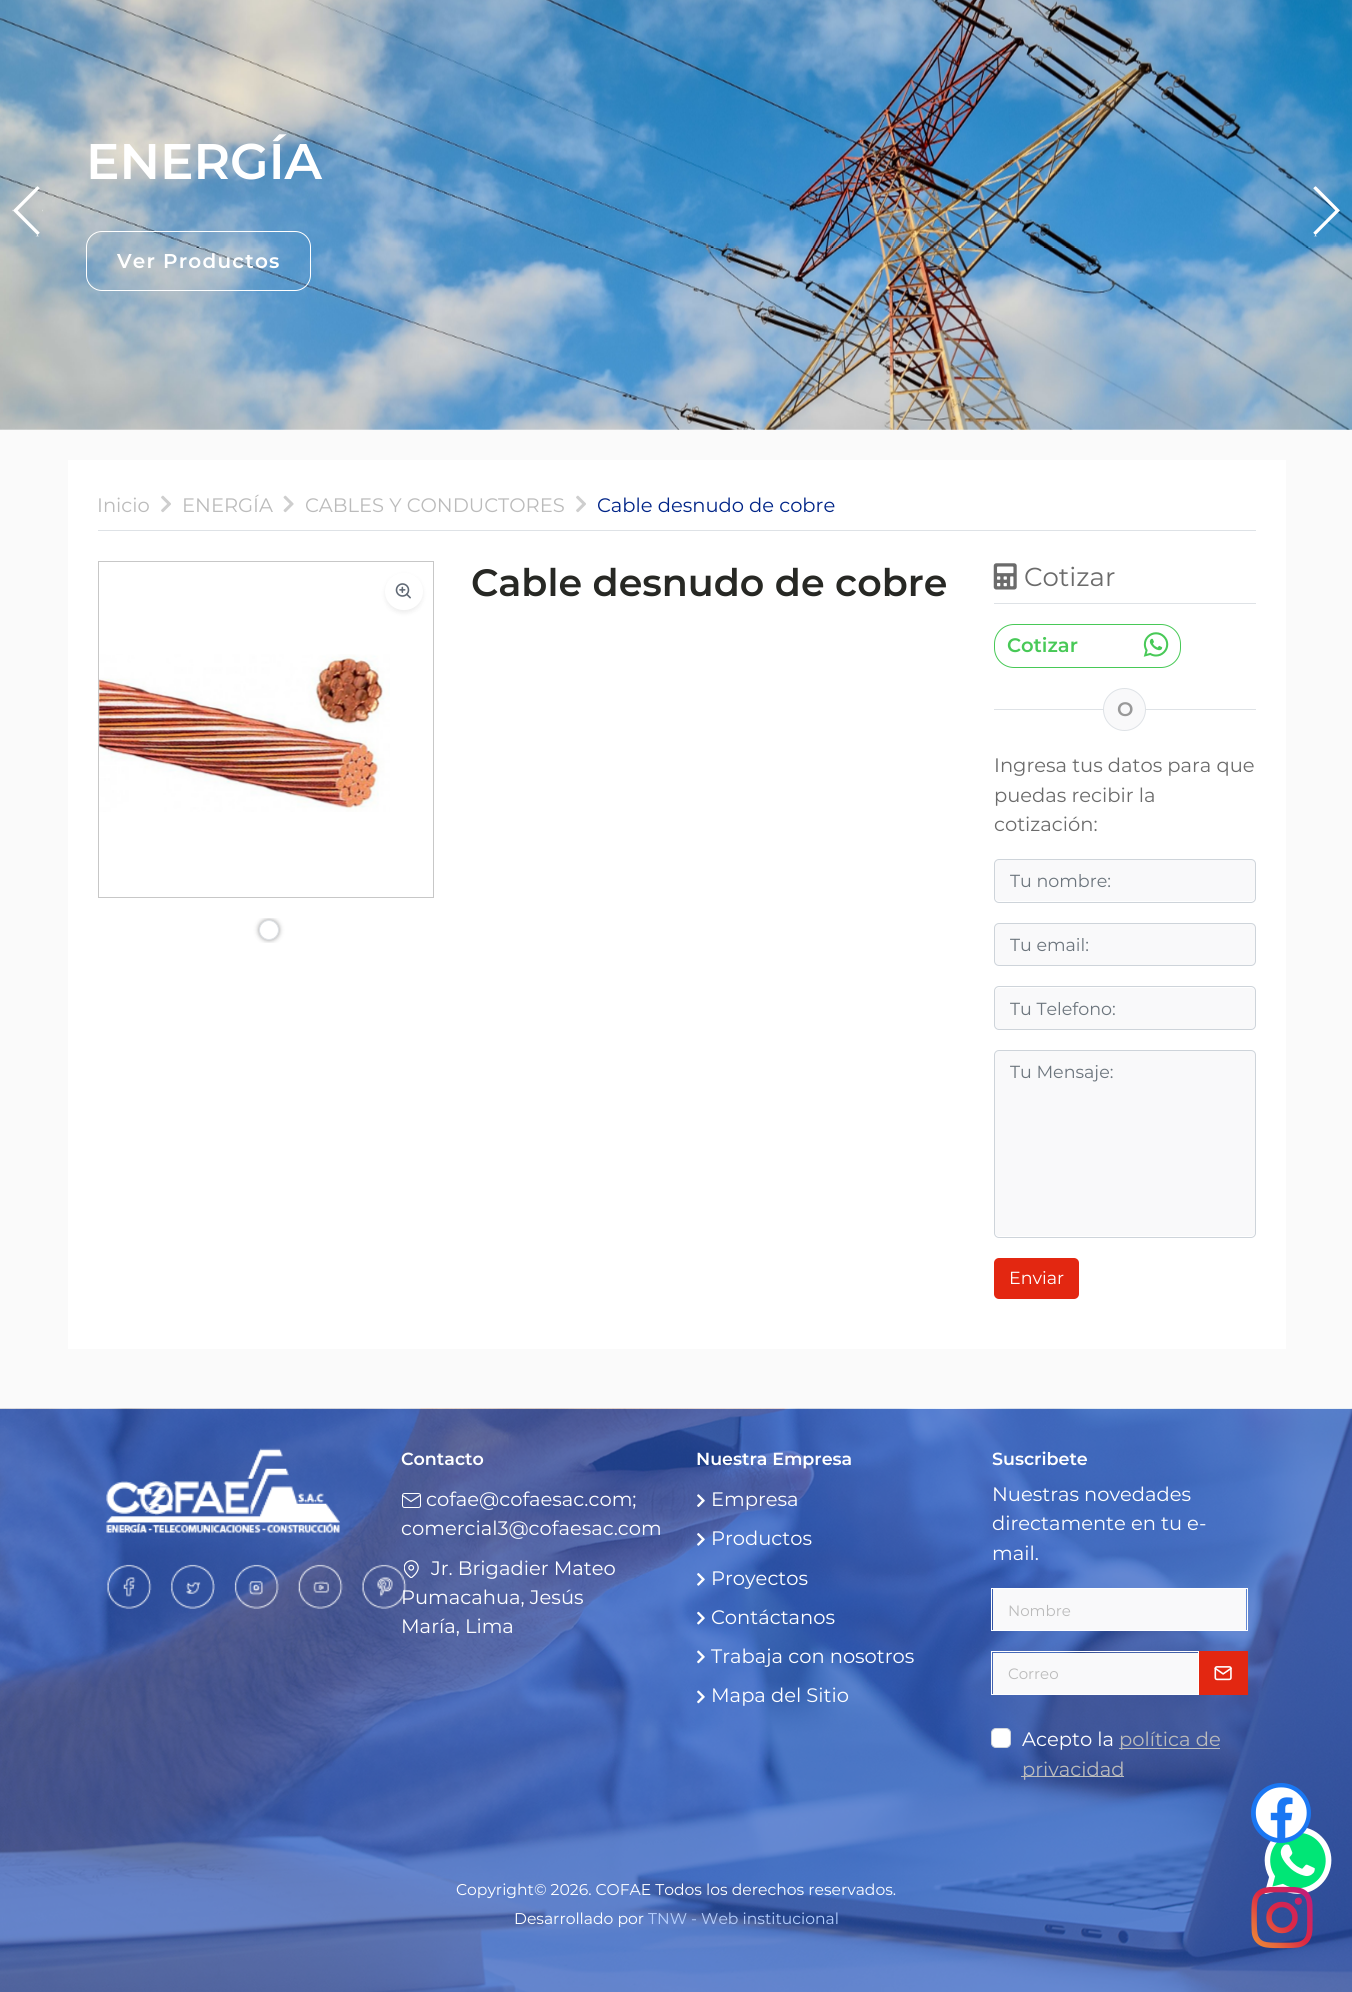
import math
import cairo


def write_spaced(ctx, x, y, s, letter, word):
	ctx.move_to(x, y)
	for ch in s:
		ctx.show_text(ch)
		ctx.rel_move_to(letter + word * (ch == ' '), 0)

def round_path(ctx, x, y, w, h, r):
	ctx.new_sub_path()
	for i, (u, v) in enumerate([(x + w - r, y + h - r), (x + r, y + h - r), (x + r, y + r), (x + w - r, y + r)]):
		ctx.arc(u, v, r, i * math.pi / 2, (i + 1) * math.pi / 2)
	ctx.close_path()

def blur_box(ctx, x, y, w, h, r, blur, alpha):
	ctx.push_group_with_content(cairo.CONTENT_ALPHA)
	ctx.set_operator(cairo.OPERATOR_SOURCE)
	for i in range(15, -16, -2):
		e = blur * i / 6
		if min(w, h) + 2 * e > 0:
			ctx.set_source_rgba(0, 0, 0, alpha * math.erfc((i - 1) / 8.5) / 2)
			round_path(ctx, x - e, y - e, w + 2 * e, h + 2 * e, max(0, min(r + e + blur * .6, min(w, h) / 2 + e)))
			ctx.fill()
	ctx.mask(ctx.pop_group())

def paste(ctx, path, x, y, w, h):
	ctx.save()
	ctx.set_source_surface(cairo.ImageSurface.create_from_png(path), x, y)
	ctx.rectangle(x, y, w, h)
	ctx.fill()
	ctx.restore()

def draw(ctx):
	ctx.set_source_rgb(1, 1, 1)
	ctx.paint()
	paste(ctx, 'media/2.png', 0, 0, 1352, 430)
	paste(ctx, 'media/1.png', 12, 186, 31, 51)
	ctx.select_font_face('Montserrat SemiBold')
	ctx.set_font_size(50)
	ctx.set_source_rgb(1, 1, 1)
	ctx.move_to(86, 179)
	ctx.show_text('ENERGÍA')
	round_path(ctx, 86.5, 231.5, 224, 59, 15.5)
	ctx.set_line_width(1)
	ctx.stroke()
	ctx.set_font_size(20)
	write_spaced(ctx, 117, 268, 'Ver Productos', 1.25, 0)
	paste(ctx, 'media/3.png', 1313, 186, 27, 51)
	ctx.set_source_rgb(0.98, 0.98, 0.98)
	ctx.rectangle(0, 430, 1352, 979)
	ctx.fill()
	ctx.set_source_rgb(1, 1, 1)
	ctx.rectangle(68, 460, 1218, 889)
	ctx.fill()
	ctx.set_source_rgb(0.871, 0.886, 0.902)
	ctx.rectangle(98, 530, 1158, 1)
	ctx.fill()
	ctx.select_font_face('Montserrat')
	ctx.set_font_size(19.5)
	ctx.set_source_rgb(0.733, 0.733, 0.733)
	ctx.move_to(97, 512)
	ctx.show_text('Inicio')
	paste(ctx, 'media/4.png', 161, 495, 10, 18)
	ctx.move_to(182, 512)
	ctx.show_text('ENERGÍA')
	paste(ctx, 'media/5.png', 283, 495, 11, 18)
	ctx.move_to(305, 512)
	ctx.show_text('CABLES Y CONDUCTORES')
	paste(ctx, 'media/4.png', 576, 495, 10, 18)
	ctx.set_source_rgb(0, 0.141, 0.529)
	ctx.move_to(597, 512)
	ctx.show_text('Cable desnudo de cobre')
	ctx.rectangle(98.5, 561.5, 335, 336)
	ctx.set_source_rgb(0.78, 0.78, 0.78)
	ctx.stroke()
	ctx.set_source_rgb(0, 0, 0)
	blur_box(ctx, 385, 575, 38, 38, 19, 2.5, 0.07)
	ctx.set_source_rgb(1, 1, 1)
	round_path(ctx, 385, 573, 38, 37, 18.5)
	ctx.fill()
	paste(ctx, 'media/6.png', 395, 583, 16, 16)
	paste(ctx, 'media/7.png', 99, 654, 291, 158)
	ctx.save()
	ctx.rectangle(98, 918, 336, 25)
	ctx.clip()
	ctx.set_source_rgb(0.467, 0.467, 0.467)
	blur_box(ctx, 259, 920, 20, 20, 10, 2.5, 0.75)
	ctx.restore()
	ctx.arc(269, 930, 9.5, 0, 2 * math.pi)
	ctx.fill_preserve()
	ctx.set_source_rgb(0.871, 0.886, 0.902)
	ctx.stroke()
	ctx.select_font_face('Montserrat SemiBold')
	ctx.set_font_size(38)
	ctx.set_source_rgb(0.153, 0.157, 0.141)
	ctx.move_to(471, 596)
	ctx.show_text('Cable desnudo de cobre')
	ctx.set_source_rgb(0.871, 0.886, 0.902)
	ctx.rectangle(994, 603, 262, 1)
	ctx.fill()
	paste(ctx, 'media/8.png', 993, 563, 24, 27)
	ctx.select_font_face('Montserrat')
	ctx.set_font_size(26)
	ctx.set_source_rgb(0.42, 0.42, 0.42)
	ctx.move_to(1024, 586)
	ctx.show_text('Cotizar')
	round_path(ctx, 994.5, 624.5, 186, 43, 19.5)
	ctx.set_source_rgb(0.282, 0.788, 0.341)
	ctx.stroke()
	ctx.select_font_face('Montserrat SemiBold')
	ctx.set_font_size(19.5)
	ctx.move_to(1007, 652)
	ctx.show_text('Cotizar')
	paste(ctx, 'media/9.png', 1143, 632, 26, 25)
	ctx.set_source_rgb(0.871, 0.886, 0.902)
	ctx.rectangle(994, 709, 262, 1)
	ctx.fill()
	ctx.set_source_rgb(0.973, 0.976, 0.98)
	ctx.arc(1124.5, 709.5, 21, 0, 2 * math.pi)
	ctx.fill_preserve()
	ctx.set_source_rgb(0.871, 0.886, 0.902)
	ctx.stroke()
	ctx.set_source_rgb(0.6, 0.6, 0.6)
	ctx.move_to(1117, 716)
	ctx.show_text('O')
	ctx.select_font_face('Montserrat')
	ctx.set_source_rgb(0.42, 0.42, 0.42)
	for x, y, s in [
		(994, 772, 'Ingresa tus datos para que'),
		(994, 802, 'puedas recibir la'),
		(994, 831, 'cotización:'),
	]:
		ctx.move_to(x, y)
		ctx.show_text(s)
	ctx.set_source_rgb(0.973, 0.976, 0.98)
	round_path(ctx, 995, 860, 260, 41, 4)
	ctx.fill()
	round_path(ctx, 994.5, 859.5, 261, 43, 4.5)
	ctx.set_source_rgb(0.808, 0.831, 0.855)
	ctx.stroke()
	ctx.set_font_size(17.5)
	ctx.set_source_rgb(0.424, 0.459, 0.49)
	ctx.move_to(1010, 887)
	ctx.show_text('Tu nombre:')
	ctx.set_source_rgb(0.973, 0.976, 0.98)
	round_path(ctx, 994.5, 923.5, 261, 42, 4.5)
	ctx.fill_preserve()
	ctx.set_source_rgb(0.808, 0.831, 0.855)
	ctx.stroke()
	ctx.set_source_rgb(0.424, 0.459, 0.49)
	ctx.move_to(1010, 951)
	ctx.show_text('Tu email:')
	ctx.set_source_rgb(0.973, 0.976, 0.98)
	round_path(ctx, 995, 988, 260, 41, 4)
	ctx.fill()
	round_path(ctx, 994.5, 986.5, 261, 43, 4.5)
	ctx.set_source_rgb(0.808, 0.831, 0.855)
	ctx.stroke()
	ctx.set_source_rgb(0.424, 0.459, 0.49)
	ctx.move_to(1010, 1015)
	ctx.show_text('Tu Telefono:')
	ctx.set_source_rgb(0.973, 0.976, 0.98)
	round_path(ctx, 995, 1051, 260, 185, 4)
	ctx.fill()
	round_path(ctx, 994.5, 1050.5, 261, 187, 4.5)
	ctx.set_source_rgb(0.808, 0.831, 0.855)
	ctx.stroke()
	ctx.set_source_rgb(0.424, 0.459, 0.49)
	ctx.move_to(1010, 1078)
	ctx.show_text('Tu Mensaje:')
	ctx.set_source_rgb(0.89, 0.153, 0.067)
	round_path(ctx, 994, 1258, 85, 41, 5)
	ctx.fill()
	ctx.set_source_rgb(1, 1, 1)
	ctx.move_to(1009, 1284)
	ctx.show_text('Enviar')
	paste(ctx, 'media/10.png', 0, 1408, 1352, 584)
	paste(ctx, 'media/11.png', 106, 1448, 234, 85)
	paste(ctx, 'media/12.png', 107, 1564, 45, 45)
	paste(ctx, 'media/13.png', 171, 1564, 44, 45)
	paste(ctx, 'media/14.png', 234, 1564, 45, 45)
	paste(ctx, 'media/15.png', 298, 1564, 45, 45)
	paste(ctx, 'media/16.png', 362, 1564, 45, 45)
	ctx.select_font_face('Montserrat SemiBold')
	ctx.move_to(401, 1465)
	ctx.show_text('Contacto')
	round_path(ctx, 402.5, 1493.5, 18, 14, 2)
	ctx.stroke()
	ctx.select_font_face('Montserrat')
	ctx.set_font_size(19.5)
	ctx.move_to(426, 1506)
	ctx.show_text('cofae@cofaesac.com;')
	ctx.new_path()
	ctx.move_to(420, 1495.5)
	ctx.line_to(411, 1501.5)
	ctx.line_to(402.5, 1495.5)
	ctx.set_line_width(1.2)
	ctx.set_line_cap(cairo.LINE_CAP_ROUND)
	ctx.set_line_join(cairo.LINE_JOIN_ROUND)
	ctx.stroke()
	ctx.move_to(401, 1535)
	ctx.show_text('comercial3@cofaesac.com')
	paste(ctx, 'media/17.png', 404, 1560, 15, 18)
	for x, y, s in [
		(431, 1575, 'Jr. Brigadier Mateo'),
		(401, 1604, 'Pumacahua, Jesús'),
		(401, 1633, 'María, Lima'),
	]:
		ctx.move_to(x, y)
		ctx.show_text(s)
	ctx.select_font_face('Montserrat SemiBold')
	ctx.set_font_size(17.5)
	ctx.move_to(696, 1465)
	ctx.show_text('Nuestra Empresa')
	paste(ctx, 'media/18.png', 697, 1494, 8, 13)
	ctx.select_font_face('Montserrat')
	ctx.set_font_size(19.5)
	ctx.move_to(711, 1506)
	ctx.show_text('Empresa')
	paste(ctx, 'media/19.png', 697, 1533, 8, 13)
	ctx.move_to(711, 1545)
	ctx.show_text('Productos')
	paste(ctx, 'media/20.png', 697, 1573, 8, 13)
	ctx.move_to(711, 1585)
	ctx.show_text('Proyectos')
	paste(ctx, 'media/21.png', 697, 1611, 8, 14)
	ctx.move_to(711, 1624)
	ctx.show_text('Contáctanos')
	paste(ctx, 'media/22.png', 697, 1650, 8, 14)
	ctx.move_to(711, 1663)
	ctx.show_text('Trabaja con nosotros')
	paste(ctx, 'media/23.png', 697, 1690, 8, 14)
	ctx.move_to(711, 1702)
	ctx.show_text('Mapa del Sitio')
	ctx.select_font_face('Montserrat SemiBold')
	ctx.set_font_size(17.5)
	ctx.move_to(992, 1465)
	ctx.show_text('Suscribete')
	ctx.select_font_face('Montserrat')
	ctx.set_font_size(19.5)
	for x, y, s in [
		(992, 1501, 'Nuestras novedades'),
		(992, 1530, 'directamente en tu e-'),
		(992, 1560, 'mail.'),
	]:
		ctx.move_to(x, y)
		ctx.show_text(s)
	ctx.set_source_rgb(0.973, 0.976, 0.98)
	ctx.rectangle(993, 1589, 253, 41)
	ctx.fill()
	ctx.rectangle(991.5, 1588.5, 256, 42)
	ctx.set_source_rgb(1, 1, 1)
	ctx.set_line_width(1)
	ctx.set_line_cap(cairo.LINE_CAP_BUTT)
	ctx.set_line_join(cairo.LINE_JOIN_MITER)
	ctx.stroke()
	ctx.set_font_size(15)
	ctx.set_source_rgb(0.733, 0.733, 0.733)
	ctx.move_to(1008, 1616)
	ctx.show_text('Nombre')
	ctx.set_source_rgb(0.973, 0.976, 0.98)
	ctx.rectangle(993, 1653, 205, 41)
	ctx.fill()
	ctx.rectangle(991.5, 1651.5, 207, 43)
	ctx.set_source_rgb(1, 1, 1)
	ctx.stroke()
	ctx.set_source_rgb(0.733, 0.733, 0.733)
	ctx.move_to(1008, 1679)
	ctx.show_text('Correo')
	ctx.set_source_rgb(0.89, 0.153, 0.067)
	ctx.rectangle(1199, 1651, 49, 44)
	ctx.fill()
	paste(ctx, 'media/24.png', 1214, 1666, 18, 15)
	ctx.set_source_rgb(1, 1, 1)
	round_path(ctx, 991.5, 1728.5, 19, 19, 4.5)
	ctx.fill_preserve()
	ctx.set_source_rgb(0.808, 0.831, 0.855)
	ctx.stroke()
	ctx.set_font_size(19.5)
	ctx.set_source_rgb(1, 1, 1)
	ctx.move_to(1022, 1746)
	ctx.show_text('Acepto la')
	ctx.set_source_rgb(0.741, 0.741, 0.741)
	ctx.rectangle(1119, 1748, 101, 1)
	ctx.fill()
	ctx.set_source_rgb(0.733, 0.733, 0.733)
	ctx.move_to(1119, 1746)
	ctx.show_text('política de')
	ctx.set_source_rgb(0.741, 0.741, 0.741)
	ctx.rectangle(1021, 1776, 103, 1)
	ctx.fill()
	ctx.set_source_rgb(0.733, 0.733, 0.733)
	ctx.move_to(1022, 1776)
	ctx.show_text('privacidad')
	ctx.set_font_size(15.6)
	ctx.set_source_rgb(1, 1, 1)
	ctx.move_to(456, 1895)
	ctx.show_text('Copyright© 2026. COFAE Todos los derechos reservados.')
	ctx.move_to(514, 1924)
	ctx.show_text('Desarrollado por')
	ctx.set_source_rgb(0.714, 0.816, 1)
	ctx.move_to(648, 1924)
	ctx.show_text('TNW - Web institucional')
	paste(ctx, 'media/27.png', 1264, 1828, 68, 66)
	ctx.set_source_rgb(0.102, 0.467, 0.953)
	ctx.arc(1281, 1813, 30, 0, 2 * math.pi)
	ctx.fill()
	paste(ctx, 'media/25.png', 1255, 1787, 52, 51)
	paste(ctx, 'media/26.png', 1251, 1886, 62, 63)


surface = cairo.ImageSurface(cairo.FORMAT_RGB24, 1352, 1992)
ctx = cairo.Context(surface)
options = cairo.FontOptions()
options.set_hint_metrics(cairo.HINT_METRICS_OFF)
options.set_hint_style(cairo.HINT_STYLE_NONE)
ctx.set_font_options(options)
ctx.set_miter_limit(4)
draw(ctx)
surface.write_to_png('image.png')
